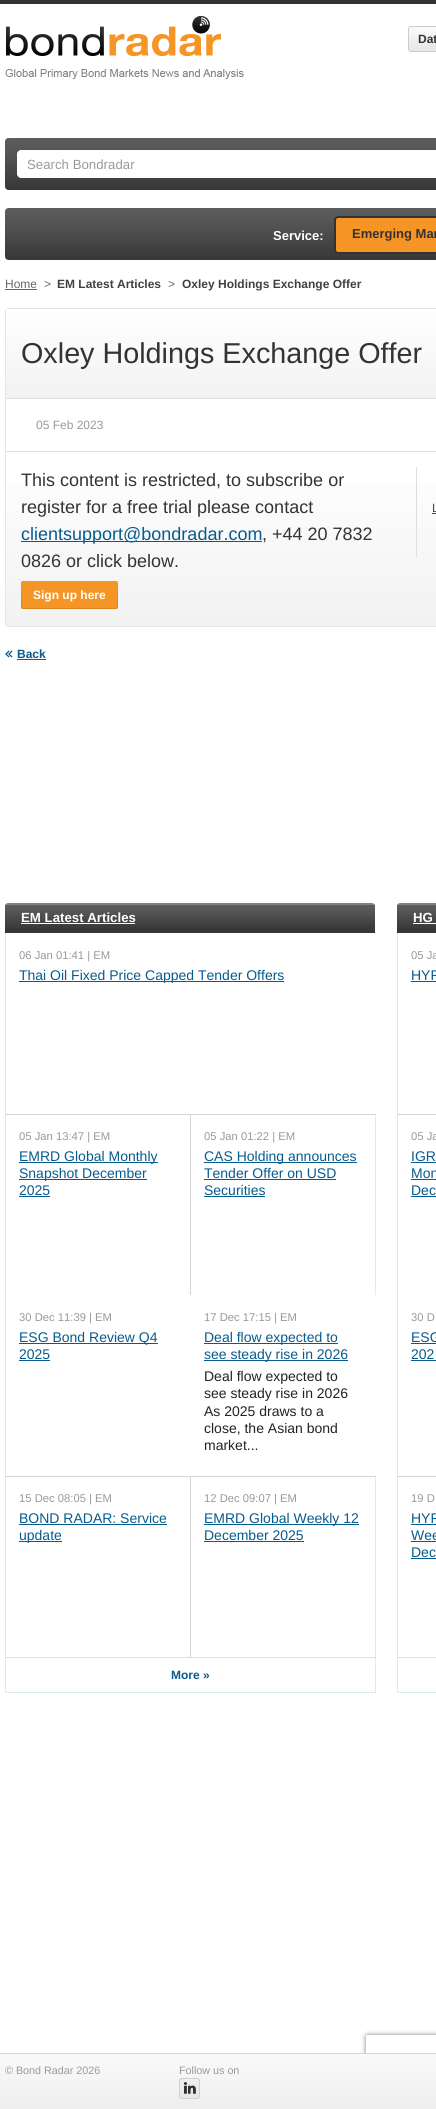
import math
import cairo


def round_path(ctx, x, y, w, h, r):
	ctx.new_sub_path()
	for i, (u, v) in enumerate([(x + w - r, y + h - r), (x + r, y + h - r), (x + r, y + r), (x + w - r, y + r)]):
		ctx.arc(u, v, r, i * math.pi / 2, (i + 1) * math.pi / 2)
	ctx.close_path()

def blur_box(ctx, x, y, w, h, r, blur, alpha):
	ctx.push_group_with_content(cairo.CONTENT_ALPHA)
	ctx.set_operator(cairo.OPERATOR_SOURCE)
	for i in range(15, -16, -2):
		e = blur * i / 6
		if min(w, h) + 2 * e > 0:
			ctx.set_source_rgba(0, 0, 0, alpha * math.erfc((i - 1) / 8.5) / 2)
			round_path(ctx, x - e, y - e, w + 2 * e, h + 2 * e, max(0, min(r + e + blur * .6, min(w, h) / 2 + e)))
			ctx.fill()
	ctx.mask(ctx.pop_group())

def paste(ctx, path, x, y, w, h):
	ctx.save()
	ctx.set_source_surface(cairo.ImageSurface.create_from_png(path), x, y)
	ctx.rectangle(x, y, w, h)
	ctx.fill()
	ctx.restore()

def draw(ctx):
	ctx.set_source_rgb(1, 1, 1)
	ctx.paint()
	ctx.set_source_rgb(0.2, 0.2, 0.2)
	ctx.rectangle(0, 0, 436, 4)
	ctx.fill()
	paste(ctx, 'media/1.png', 5, 16, 239, 63)
	paste(ctx, 'media/2.png', 408, 26, 28, 26)
	ctx.select_font_face('Liberation Sans', cairo.FONT_SLANT_NORMAL, cairo.FONT_WEIGHT_BOLD)
	ctx.set_font_size(12)
	ctx.move_to(418, 43)
	ctx.show_text('Dat')
	paste(ctx, 'media/3.png', 5, 138, 431, 52)
	ctx.set_source_rgb(1, 1, 1)
	ctx.new_path()
	ctx.move_to(21, 150)
	ctx.line_to(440, 150)
	ctx.line_to(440, 178)
	ctx.line_to(21, 178)
	ctx.curve_to(19, 178, 17, 176, 17, 174)
	ctx.line_to(17, 154)
	ctx.curve_to(17, 152, 19, 150, 21, 150)
	ctx.close_path()
	ctx.fill()
	ctx.select_font_face('Liberation Sans')
	ctx.set_font_size(13.25)
	ctx.set_source_rgb(0.6, 0.6, 0.6)
	ctx.move_to(27, 169)
	ctx.show_text('Search Bondradar')
	paste(ctx, 'media/3.png', 5, 208, 431, 52)
	ctx.select_font_face('Liberation Sans', cairo.FONT_SLANT_NORMAL, cairo.FONT_WEIGHT_BOLD)
	ctx.set_font_size(13)
	ctx.set_source_rgb(1, 1, 1)
	ctx.move_to(273, 240)
	ctx.show_text('Service:')
	ctx.set_source_rgb(0.961, 0.584, 0.145)
	ctx.new_path()
	ctx.move_to(338, 217)
	ctx.line_to(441, 217)
	ctx.line_to(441, 253)
	ctx.line_to(338, 253)
	ctx.curve_to(336.5, 253, 335, 251.5, 335, 250)
	ctx.line_to(335, 220)
	ctx.curve_to(335, 218.5, 336.5, 217, 338, 217)
	ctx.close_path()
	ctx.fill_preserve()
	ctx.set_source_rgb(0.2, 0.2, 0.2)
	ctx.stroke()
	ctx.move_to(352, 238)
	ctx.show_text('Emerging Mar')
	ctx.select_font_face('Liberation Sans')
	ctx.set_font_size(12)
	ctx.set_source_rgb(0.4, 0.4, 0.4)
	ctx.move_to(5, 288)
	ctx.show_text('Home')
	ctx.rectangle(5, 289, 32, 1)
	ctx.fill()
	ctx.move_to(44, 288)
	ctx.show_text('>')
	ctx.select_font_face('Liberation Sans', cairo.FONT_SLANT_NORMAL, cairo.FONT_WEIGHT_BOLD)
	ctx.set_source_rgb(0.255, 0.255, 0.255)
	ctx.move_to(57, 288)
	ctx.show_text('EM Latest Articles')
	ctx.select_font_face('Liberation Sans')
	ctx.set_source_rgb(0.4, 0.4, 0.4)
	ctx.move_to(168, 288)
	ctx.show_text('>')
	ctx.select_font_face('Liberation Sans', cairo.FONT_SLANT_NORMAL, cairo.FONT_WEIGHT_BOLD)
	ctx.set_source_rgb(0.255, 0.255, 0.255)
	ctx.move_to(182, 288)
	ctx.show_text('Oxley Holdings Exchange Offer')
	round_path(ctx, 5.5, 308.5, 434, 318, 2.5)
	ctx.set_source_rgb(0.898, 0.898, 0.898)
	ctx.set_line_width(1)
	ctx.stroke()
	gradient = cairo.LinearGradient(387, 309, 387, 398)
	gradient.add_color_stop_rgba(0, 1, 1, 1, 1)
	gradient.add_color_stop_rgba(1, 0.949, 0.949, 0.949, 1)
	ctx.set_source(gradient)
	ctx.rectangle(6, 309, 430, 89)
	ctx.fill()
	ctx.set_source_rgb(0.871, 0.871, 0.871)
	ctx.rectangle(6, 398, 430, 1)
	ctx.fill()
	ctx.select_font_face('Liberation Sans')
	ctx.set_font_size(28.75)
	ctx.set_source_rgb(0.2, 0.2, 0.2)
	ctx.move_to(21, 363)
	ctx.show_text('Oxley Holdings Exchange Offer')
	ctx.set_font_size(12)
	ctx.set_source_rgb(0.6, 0.6, 0.6)
	ctx.move_to(36, 429)
	ctx.show_text('05 Feb 2023')
	gradient = cairo.LinearGradient(387, 452, 387, 626)
	gradient.add_color_stop_rgba(0, 1, 1, 1, 1)
	gradient.add_color_stop_rgba(1, 0.949, 0.949, 0.949, 1)
	ctx.set_source(gradient)
	ctx.rectangle(6, 485, 430, 141)
	ctx.fill()
	ctx.set_source_rgb(0.871, 0.871, 0.871)
	ctx.rectangle(6, 451, 430, 1)
	ctx.fill()
	ctx.set_font_size(18)
	ctx.set_source_rgb(0.2, 0.2, 0.2)
	ctx.move_to(21, 486)
	ctx.show_text('This content is restricted, to subscribe or')
	ctx.move_to(21, 513)
	ctx.show_text('register for a free trial please contact')
	ctx.set_source_rgb(0.024, 0.357, 0.561)
	ctx.rectangle(21, 541, 241, 1)
	ctx.fill()
	ctx.move_to(21, 540)
	ctx.show_text('clientsupport@bondradar.com')
	ctx.set_source_rgb(0.2, 0.2, 0.2)
	ctx.move_to(262, 540)
	ctx.show_text(', +44 20 7832')
	ctx.move_to(21, 567)
	ctx.show_text('0826 or click below.')
	paste(ctx, 'media/4.png', 21, 581, 95, 28)
	paste(ctx, 'media/5.png', 116, 581, 2, 28)
	ctx.select_font_face('Liberation Sans', cairo.FONT_SLANT_NORMAL, cairo.FONT_WEIGHT_BOLD)
	ctx.set_font_size(12)
	ctx.set_source_rgb(1, 1, 1)
	ctx.move_to(33, 599)
	ctx.show_text('Sign up here')
	ctx.set_source_rgb(0.871, 0.871, 0.871)
	ctx.rectangle(416, 467, 1, 90)
	ctx.fill()
	ctx.select_font_face('Liberation Sans')
	ctx.set_source_rgb(0.024, 0.357, 0.561)
	ctx.move_to(432, 512)
	ctx.show_text('L')
	ctx.rectangle(432, 513, 4, 1)
	ctx.fill()
	paste(ctx, 'media/6.png', 5, 650, 8, 8)
	ctx.select_font_face('Liberation Sans', cairo.FONT_SLANT_NORMAL, cairo.FONT_WEIGHT_BOLD)
	ctx.move_to(17, 658)
	ctx.show_text('Back')
	ctx.set_source_rgb(0.024, 0.357, 0.569)
	ctx.rectangle(17, 659, 29, 1)
	ctx.fill()
	ctx.set_source_rgb(0.502, 0.502, 0.502)
	ctx.new_path()
	ctx.move_to(8, 903)
	ctx.line_to(372, 903)
	ctx.curve_to(373.5, 903, 375, 904.5, 375, 906)
	ctx.line_to(375, 933)
	ctx.line_to(5, 933)
	ctx.line_to(5, 906)
	ctx.curve_to(5, 904.5, 6.5, 903, 8, 903)
	ctx.close_path()
	ctx.fill()
	paste(ctx, 'media/7.png', 5, 905, 370, 28)
	ctx.set_font_size(13.25)
	ctx.set_source_rgb(1, 1, 1)
	ctx.move_to(21, 922)
	ctx.show_text('EM Latest Articles')
	ctx.rectangle(21, 923, 114, 1)
	ctx.fill()
	ctx.set_source_rgb(0.867, 0.933, 0.867)
	ctx.rectangle(375, 1115, 1, 578)
	ctx.rectangle(5, 1692, 371, 1)
	ctx.rectangle(5, 933, 1, 760)
	ctx.fill()
	ctx.set_source_rgb(0.835, 0.835, 0.835)
	ctx.rectangle(5, 933, 1, 1)
	ctx.fill()
	ctx.select_font_face('Liberation Sans')
	ctx.set_font_size(11.25)
	ctx.set_source_rgb(0.6, 0.6, 0.6)
	ctx.move_to(19, 959)
	ctx.show_text('06 Jan 01:41 | EM')
	ctx.set_source_rgb(0.024, 0.357, 0.561)
	ctx.rectangle(19, 981, 265, 1)
	ctx.fill()
	ctx.set_font_size(14)
	ctx.move_to(19, 980)
	ctx.show_text('Thai Oil Fixed Price Capped Tender Offers')
	ctx.set_source_rgb(0.835, 0.835, 0.835)
	ctx.rectangle(190, 1114, 186, 1)
	ctx.rectangle(190, 1114, 1, 182)
	ctx.rectangle(5, 1114, 186, 1)
	ctx.fill()
	ctx.set_font_size(11.25)
	ctx.set_source_rgb(0.6, 0.6, 0.6)
	ctx.move_to(19, 1140)
	ctx.show_text('05 Jan 13:47 | EM')
	ctx.set_source_rgb(0.024, 0.357, 0.561)
	ctx.rectangle(19, 1162, 139, 1)
	ctx.fill()
	ctx.set_font_size(14)
	ctx.move_to(19, 1161)
	ctx.show_text('EMRD Global Monthly')
	ctx.rectangle(19, 1179, 128, 1)
	ctx.fill()
	ctx.move_to(19, 1178)
	ctx.show_text('Snapshot December')
	ctx.move_to(19, 1195)
	ctx.show_text('2025')
	ctx.rectangle(19, 1196, 31, 1)
	ctx.fill()
	ctx.set_font_size(11.25)
	ctx.set_source_rgb(0.6, 0.6, 0.6)
	ctx.move_to(204, 1140)
	ctx.show_text('05 Jan 01:22 | EM')
	ctx.set_source_rgb(0.024, 0.357, 0.561)
	ctx.rectangle(204, 1162, 153, 1)
	ctx.fill()
	ctx.set_font_size(14)
	ctx.move_to(204, 1161)
	ctx.show_text('CAS Holding announces')
	ctx.move_to(204, 1178)
	ctx.show_text('Tender Offer on USD')
	ctx.rectangle(204, 1179, 132, 1)
	ctx.fill()
	ctx.move_to(204, 1195)
	ctx.show_text('Securities')
	ctx.rectangle(204, 1196, 61, 1)
	ctx.fill()
	ctx.set_source_rgb(0.835, 0.835, 0.835)
	ctx.rectangle(5, 1295, 1, 1)
	ctx.fill()
	ctx.set_source_rgb(1, 1, 1)
	ctx.rectangle(190, 1295, 1, 1)
	ctx.fill()
	ctx.set_font_size(11.25)
	ctx.set_source_rgb(0.6, 0.6, 0.6)
	ctx.move_to(19, 1321)
	ctx.show_text('30 Dec 11:39 | EM')
	ctx.set_source_rgb(0.024, 0.357, 0.561)
	ctx.rectangle(19, 1343, 139, 1)
	ctx.fill()
	ctx.set_font_size(14)
	ctx.move_to(19, 1342)
	ctx.show_text('ESG Bond Review Q4')
	ctx.move_to(19, 1359)
	ctx.show_text('2025')
	ctx.rectangle(19, 1360, 31, 1)
	ctx.fill()
	ctx.set_source_rgb(1, 1, 1)
	ctx.rectangle(375, 1295, 1, 181)
	ctx.fill()
	ctx.set_font_size(11.25)
	ctx.set_source_rgb(0.6, 0.6, 0.6)
	ctx.move_to(204, 1321)
	ctx.show_text('17 Dec 17:15 | EM')
	ctx.set_source_rgb(0.024, 0.357, 0.561)
	ctx.rectangle(204, 1343, 134, 1)
	ctx.fill()
	ctx.set_font_size(14)
	ctx.move_to(204, 1342)
	ctx.show_text('Deal flow expected to')
	ctx.rectangle(204, 1360, 144, 1)
	ctx.fill()
	ctx.move_to(204, 1359)
	ctx.show_text('see steady rise in 2026')
	ctx.set_source_rgb(0.133, 0.133, 0.133)
	for x, y, s in [
		(204, 1381, 'Deal flow expected to'),
		(204, 1398, 'see steady rise in 2026'),
		(204, 1416, 'As 2025 draws to a'),
		(204, 1433, 'close, the Asian bond'),
		(204, 1450, 'market...'),
	]:
		ctx.move_to(x, y)
		ctx.show_text(s)
	ctx.set_source_rgb(0.835, 0.835, 0.835)
	ctx.rectangle(190, 1476, 186, 1)
	ctx.fill()
	ctx.set_source_rgb(0.871, 0.871, 0.871)
	ctx.rectangle(5, 1657, 371, 1)
	ctx.fill()
	ctx.set_source_rgb(0.835, 0.835, 0.835)
	ctx.rectangle(190, 1476, 1, 182)
	ctx.rectangle(5, 1476, 186, 1)
	ctx.fill()
	ctx.set_font_size(11.25)
	ctx.set_source_rgb(0.6, 0.6, 0.6)
	ctx.move_to(19, 1502)
	ctx.show_text('15 Dec 08:05 | EM')
	ctx.set_font_size(14)
	ctx.set_source_rgb(0.024, 0.357, 0.561)
	ctx.move_to(19, 1523)
	ctx.show_text('BOND RADAR: Service')
	ctx.rectangle(19, 1524, 148, 1)
	ctx.fill()
	ctx.rectangle(19, 1541, 43, 1)
	ctx.fill()
	ctx.move_to(19, 1540)
	ctx.show_text('update')
	ctx.set_font_size(11.25)
	ctx.set_source_rgb(0.6, 0.6, 0.6)
	ctx.move_to(204, 1502)
	ctx.show_text('12 Dec 09:07 | EM')
	ctx.set_source_rgb(0.024, 0.357, 0.561)
	ctx.rectangle(204, 1524, 155, 1)
	ctx.fill()
	ctx.set_font_size(14)
	ctx.move_to(204, 1523)
	ctx.show_text('EMRD Global Weekly 12')
	ctx.move_to(204, 1540)
	ctx.show_text('December 2025')
	ctx.rectangle(204, 1541, 100, 1)
	ctx.fill()
	ctx.select_font_face('Liberation Sans', cairo.FONT_SLANT_NORMAL, cairo.FONT_WEIGHT_BOLD)
	ctx.set_font_size(12)
	ctx.move_to(171, 1679)
	ctx.show_text('More »')
	ctx.set_source_rgb(0.502, 0.502, 0.502)
	ctx.new_path()
	ctx.move_to(400, 903)
	ctx.line_to(436, 903)
	ctx.curve_to(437.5, 903, 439, 904.5, 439, 906)
	ctx.line_to(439, 933)
	ctx.line_to(397, 933)
	ctx.line_to(397, 906)
	ctx.curve_to(397, 904.5, 398.5, 903, 400, 903)
	ctx.close_path()
	ctx.fill()
	paste(ctx, 'media/8.png', 397, 905, 39, 28)
	ctx.set_font_size(13.25)
	ctx.set_source_rgb(1, 1, 1)
	ctx.move_to(413, 922)
	ctx.show_text('HG')
	ctx.rectangle(413, 923, 23, 1)
	ctx.fill()
	ctx.set_source_rgb(0.867, 0.933, 0.867)
	ctx.rectangle(397, 1692, 39, 1)
	ctx.rectangle(397, 933, 1, 760)
	ctx.fill()
	ctx.set_source_rgb(0.835, 0.835, 0.835)
	ctx.rectangle(397, 933, 1, 1)
	ctx.fill()
	ctx.select_font_face('Liberation Sans')
	ctx.set_font_size(11.25)
	ctx.set_source_rgb(0.6, 0.6, 0.6)
	ctx.move_to(411, 959)
	ctx.show_text('05 Ja')
	ctx.set_font_size(14)
	ctx.set_source_rgb(0.024, 0.357, 0.561)
	ctx.move_to(411, 980)
	ctx.show_text('HYR')
	ctx.rectangle(411, 981, 25, 1)
	ctx.fill()
	ctx.set_source_rgb(0.835, 0.835, 0.835)
	ctx.rectangle(397, 1114, 39, 1)
	ctx.fill()
	ctx.set_font_size(11.25)
	ctx.set_source_rgb(0.6, 0.6, 0.6)
	ctx.move_to(411, 1140)
	ctx.show_text('05 Ja')
	ctx.set_font_size(14)
	ctx.set_source_rgb(0.024, 0.357, 0.561)
	ctx.move_to(411, 1161)
	ctx.show_text('IGR')
	ctx.rectangle(411, 1162, 25, 1)
	ctx.fill()
	ctx.move_to(411, 1178)
	ctx.show_text('Mon')
	ctx.rectangle(411, 1179, 25, 1)
	ctx.fill()
	ctx.move_to(411, 1195)
	ctx.show_text('Dec')
	ctx.rectangle(411, 1196, 25, 1)
	ctx.fill()
	ctx.set_source_rgb(0.835, 0.835, 0.835)
	ctx.rectangle(397, 1295, 1, 1)
	ctx.fill()
	ctx.set_font_size(11.25)
	ctx.set_source_rgb(0.6, 0.6, 0.6)
	ctx.move_to(411, 1321)
	ctx.show_text('30 D')
	ctx.set_font_size(14)
	ctx.set_source_rgb(0.024, 0.357, 0.561)
	ctx.move_to(411, 1342)
	ctx.show_text('ESG')
	ctx.rectangle(411, 1343, 25, 1)
	ctx.fill()
	ctx.move_to(411, 1359)
	ctx.show_text('202')
	ctx.rectangle(411, 1360, 25, 1)
	ctx.fill()
	ctx.set_source_rgb(0.835, 0.835, 0.835)
	ctx.rectangle(397, 1476, 39, 1)
	ctx.fill()
	ctx.set_font_size(11.25)
	ctx.set_source_rgb(0.6, 0.6, 0.6)
	ctx.move_to(411, 1502)
	ctx.show_text('19 D')
	ctx.set_font_size(14)
	ctx.set_source_rgb(0.024, 0.357, 0.561)
	ctx.move_to(411, 1523)
	ctx.show_text('HYR')
	ctx.rectangle(411, 1524, 25, 1)
	ctx.fill()
	ctx.move_to(411, 1540)
	ctx.show_text('Wee')
	ctx.rectangle(411, 1541, 25, 1)
	ctx.fill()
	ctx.move_to(411, 1557)
	ctx.show_text('Dec')
	ctx.rectangle(411, 1558, 25, 1)
	ctx.fill()
	ctx.set_source_rgb(0.871, 0.871, 0.871)
	ctx.rectangle(397, 1657, 39, 1)
	ctx.fill()
	ctx.save()
	ctx.set_fill_rule(cairo.FILL_RULE_EVEN_ODD)
	ctx.new_path()
	ctx.move_to(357, 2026)
	ctx.line_to(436, 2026)
	ctx.line_to(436, 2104)
	ctx.line_to(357, 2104)
	ctx.close_path()
	ctx.move_to(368, 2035)
	ctx.line_to(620, 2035)
	ctx.curve_to(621, 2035, 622, 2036, 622, 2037)
	ctx.line_to(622, 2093)
	ctx.curve_to(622, 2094, 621, 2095, 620, 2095)
	ctx.line_to(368, 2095)
	ctx.curve_to(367, 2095, 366, 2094, 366, 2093)
	ctx.line_to(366, 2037)
	ctx.curve_to(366, 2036, 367, 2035, 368, 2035)
	ctx.close_path()
	ctx.clip()
	ctx.set_source_rgb(0.502, 0.502, 0.502)
	blur_box(ctx, 366, 2035, 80, 60, 2, 2.5, 1)
	ctx.restore()
	gradient = cairo.LinearGradient(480, 2109, 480, 2054)
	gradient.add_color_stop_rgba(0, 0.933, 0.933, 0.933, 1)
	gradient.add_color_stop_rgba(1, 0.98, 0.98, 0.98, 1)
	ctx.set_source(gradient)
	ctx.rectangle(0, 2054, 436, 55)
	ctx.fill()
	ctx.set_source_rgb(0.835, 0.835, 0.835)
	ctx.rectangle(0, 2053, 436, 1)
	ctx.fill()
	ctx.set_font_size(10.75)
	ctx.set_source_rgb(0.6, 0.6, 0.6)
	ctx.move_to(5, 2074)
	ctx.show_text('© Bond Radar 2026')
	ctx.move_to(179, 2074)
	ctx.show_text('Follow us on')
	paste(ctx, 'media/9.png', 179, 2078, 21, 21)


surface = cairo.ImageSurface(cairo.FORMAT_RGB24, 436, 2109)
ctx = cairo.Context(surface)
options = cairo.FontOptions()
options.set_hint_metrics(cairo.HINT_METRICS_OFF)
options.set_hint_style(cairo.HINT_STYLE_NONE)
ctx.set_font_options(options)
ctx.set_miter_limit(4)
draw(ctx)
surface.write_to_png('image.png')
